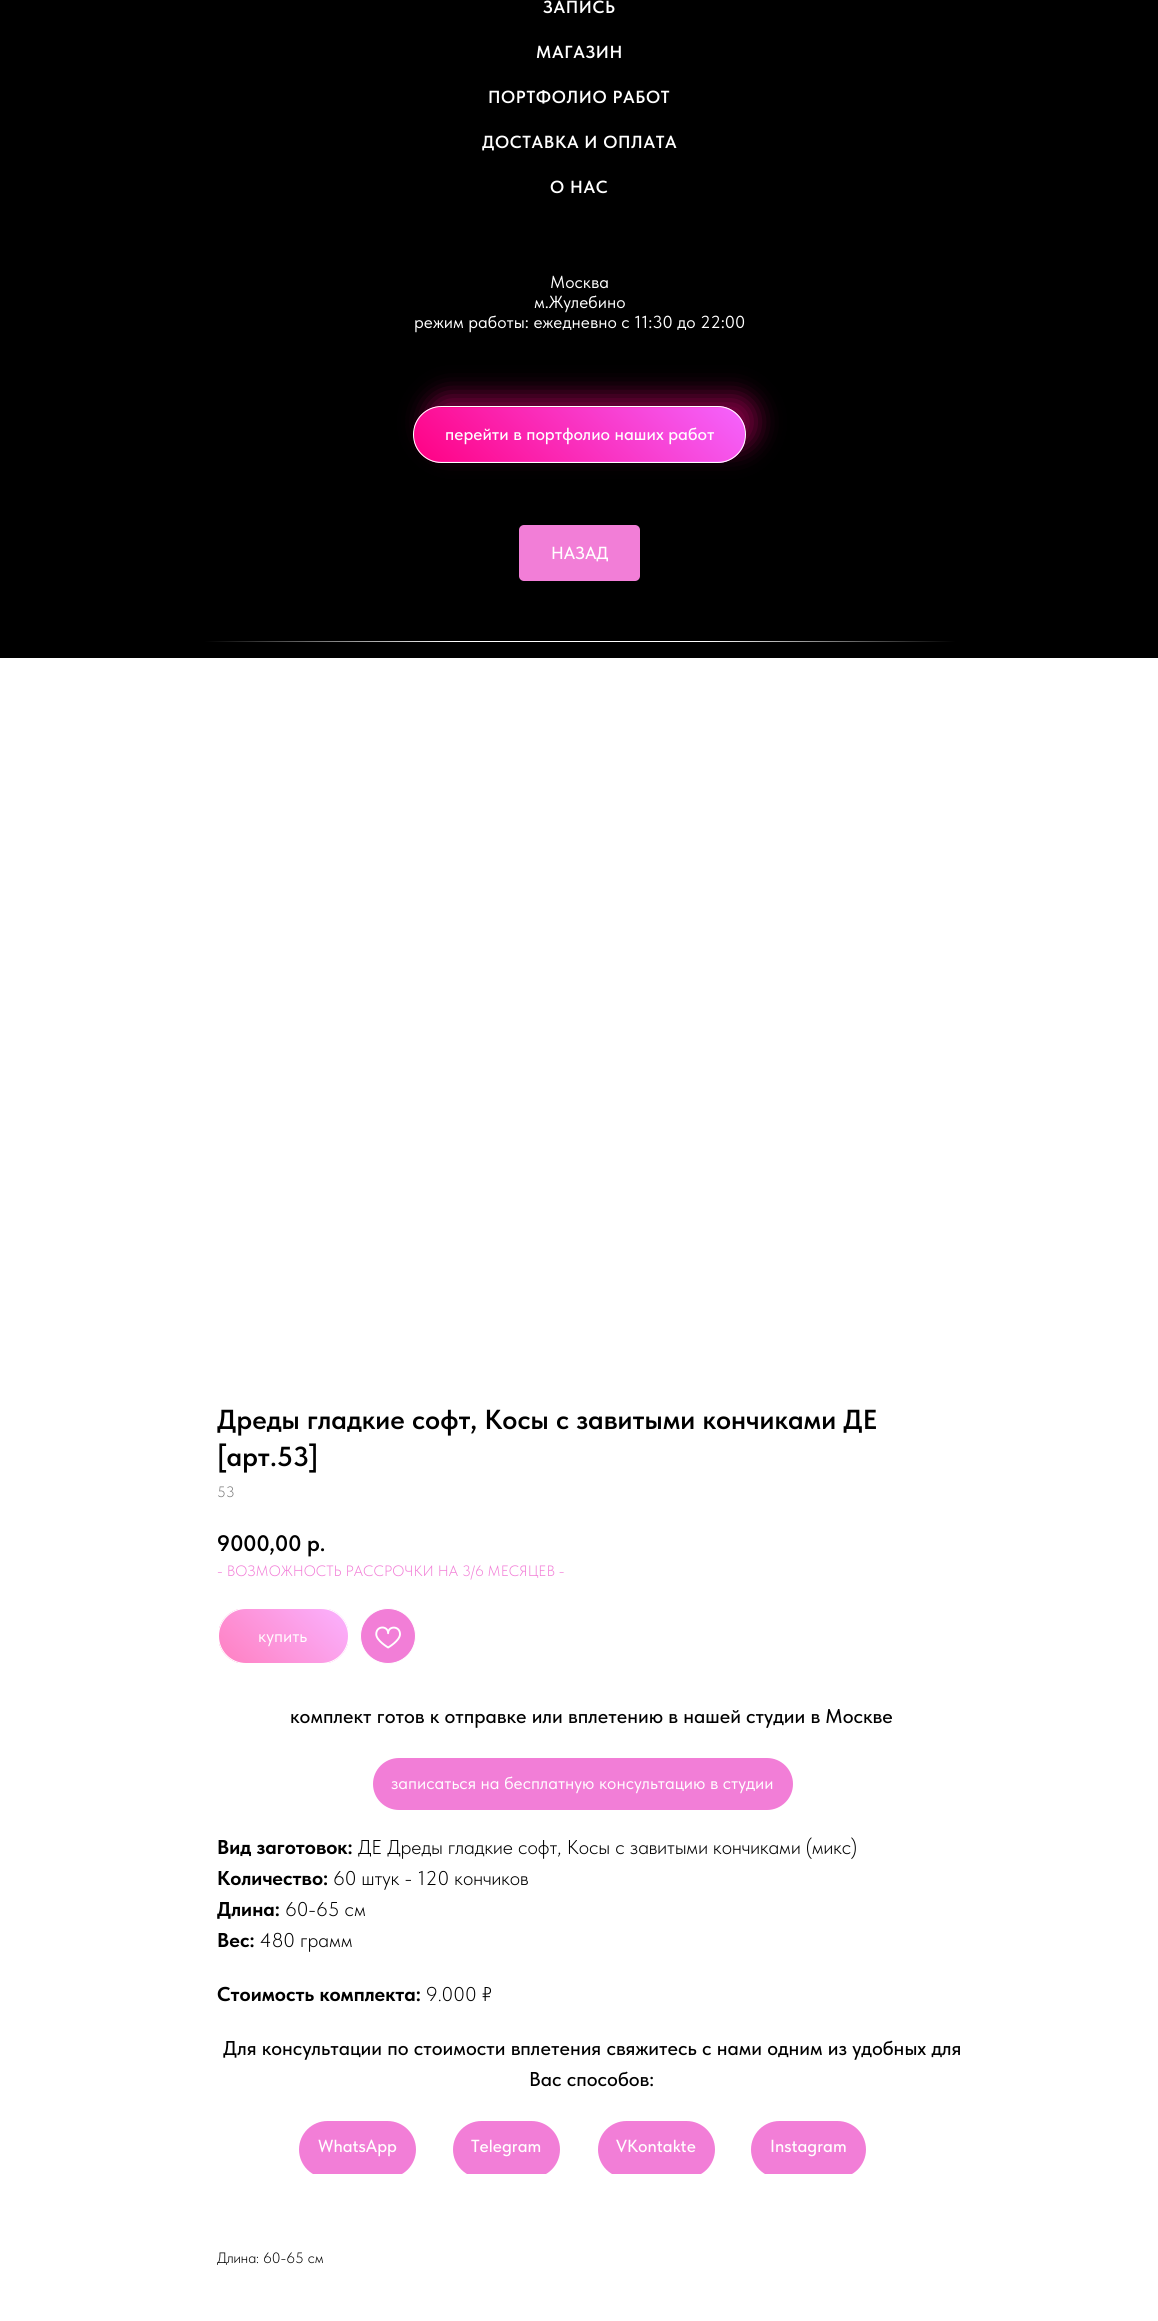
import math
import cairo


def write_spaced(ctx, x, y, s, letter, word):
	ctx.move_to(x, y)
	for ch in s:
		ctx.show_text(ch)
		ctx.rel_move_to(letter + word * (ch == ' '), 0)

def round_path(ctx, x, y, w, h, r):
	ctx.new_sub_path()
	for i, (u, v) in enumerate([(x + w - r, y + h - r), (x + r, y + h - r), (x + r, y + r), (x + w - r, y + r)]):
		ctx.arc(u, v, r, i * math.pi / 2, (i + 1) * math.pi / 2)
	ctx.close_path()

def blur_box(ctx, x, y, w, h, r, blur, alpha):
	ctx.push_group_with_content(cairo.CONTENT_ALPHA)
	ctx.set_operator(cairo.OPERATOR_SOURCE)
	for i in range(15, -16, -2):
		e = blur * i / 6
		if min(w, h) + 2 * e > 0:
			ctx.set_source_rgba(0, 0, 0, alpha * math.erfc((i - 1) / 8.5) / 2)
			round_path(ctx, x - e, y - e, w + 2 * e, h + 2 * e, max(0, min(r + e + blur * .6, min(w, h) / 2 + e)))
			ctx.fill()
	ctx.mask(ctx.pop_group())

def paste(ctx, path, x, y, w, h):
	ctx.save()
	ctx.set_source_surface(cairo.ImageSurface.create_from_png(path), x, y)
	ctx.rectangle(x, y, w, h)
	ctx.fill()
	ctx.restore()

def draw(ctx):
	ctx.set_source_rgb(0, 0, 0)
	ctx.paint()
	ctx.select_font_face('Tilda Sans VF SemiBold')
	ctx.set_font_size(17.5)
	ctx.set_source_rgb(1, 1, 1)
	for x, y, s in [
		(543, 13, 'ЗАПИСЬ'),
		(536, 58, 'МАГАЗИН'),
		(488, 103, 'ПОРТФОЛИО РАБОТ'),
		(482, 148, 'ДОСТАВКА И ОПЛАТА'),
		(550, 193, 'О НАС'),
	]:
		write_spaced(ctx, x, y, s, 0.6, 0)
	ctx.select_font_face('Tilda Sans VF')
	for x, y, s in [
		(550, 288, 'Москва'),
		(534, 308, 'м.Жулебино'),
		(414, 328, 'режим работы: ежедневно с 11:30 до 22:00'),
	]:
		ctx.move_to(x, y)
		ctx.show_text(s)
	ctx.set_source_rgb(1, 0, 0.514)
	blur_box(ctx, 428, 396, 328, 52, 26, 12.5, 0.5)
	ctx.save()
	round_path(ctx, 413, 406, 333, 57, 28.5)
	ctx.clip()
	gradient = cairo.LinearGradient(483, 477, 676, 284)
	gradient.add_color_stop_rgba(0, 1, 0, 0.514, 1)
	gradient.add_color_stop_rgba(1, 0.957, 0.392, 0.996, 1)
	ctx.set_source(gradient)
	ctx.rectangle(431, 406, 297, 2)
	ctx.fill()
	gradient = cairo.LinearGradient(483, 531, 676, 338)
	gradient.add_color_stop_rgba(0, 1, 0, 0.514, 1)
	gradient.add_color_stop_rgba(1, 0.957, 0.392, 0.996, 1)
	ctx.set_source(gradient)
	ctx.rectangle(414, 408, 331, 53)
	ctx.fill()
	gradient = cairo.LinearGradient(483, 584, 676, 392)
	gradient.add_color_stop_rgba(0, 1, 0, 0.514, 1)
	gradient.add_color_stop_rgba(1, 0.957, 0.392, 0.996, 1)
	ctx.set_source(gradient)
	ctx.rectangle(431, 461, 297, 2)
	ctx.fill()
	ctx.restore()
	round_path(ctx, 413.5, 406.5, 332, 56, 28)
	ctx.set_source_rgb(1, 1, 1)
	ctx.set_line_width(1)
	ctx.stroke()
	ctx.select_font_face('Tilda Sans VF Medium')
	ctx.move_to(445, 440)
	ctx.show_text('перейти в портфолио наших работ')
	ctx.set_source_rgb(0.949, 0.494, 0.843)
	round_path(ctx, 519, 525, 121, 56, 5)
	ctx.fill()
	ctx.set_source_rgb(1, 1, 1)
	ctx.move_to(551, 559)
	ctx.show_text('НАЗАД')
	gradient = cairo.LinearGradient(455, 642, 205, 642)
	gradient.add_color_stop_rgba(0, 1, 1, 1, 1)
	gradient.add_color_stop_rgba(1, 0, 0, 0, 1)
	ctx.set_source(gradient)
	ctx.rectangle(205, 641, 250, 1)
	ctx.fill()
	ctx.set_source_rgb(1, 1, 1)
	ctx.rectangle(455, 641, 250, 1)
	ctx.fill()
	gradient = cairo.LinearGradient(705, 642, 955, 642)
	gradient.add_color_stop_rgba(0, 1, 1, 1, 1)
	gradient.add_color_stop_rgba(1, 0, 0, 0, 1)
	ctx.set_source(gradient)
	ctx.rectangle(705, 641, 250, 1)
	ctx.fill()
	ctx.set_source_rgb(1, 1, 1)
	ctx.rectangle(0, 658, 1158, 1663)
	ctx.fill()
	ctx.select_font_face('Tilda Sans VF SemiBold')
	ctx.set_font_size(27.5)
	ctx.set_source_rgb(0, 0, 0)
	ctx.move_to(217, 1429)
	ctx.show_text('Дреды гладкие софт, Косы с завитыми кончиками ДЕ')
	ctx.move_to(217, 1466)
	ctx.show_text('[арт.53]')
	ctx.select_font_face('Tilda Sans VF Light')
	ctx.set_font_size(15)
	ctx.set_source_rgb(0.467, 0.467, 0.467)
	ctx.move_to(217, 1497)
	ctx.show_text('53')
	ctx.select_font_face('Tilda Sans VF SemiBold')
	ctx.set_font_size(22.5)
	ctx.set_source_rgb(0, 0, 0)
	ctx.move_to(217, 1551)
	ctx.show_text('9000,00')
	ctx.move_to(307, 1551)
	ctx.show_text('р.')
	ctx.select_font_face('Tilda Sans VF Light')
	ctx.set_font_size(15)
	ctx.set_source_rgb(0.949, 0.494, 0.843)
	ctx.move_to(217, 1576)
	ctx.show_text('- ВОЗМОЖНОСТЬ РАССРОЧКИ НА 3/6 МЕСЯЦЕВ -')
	ctx.save()
	round_path(ctx, 218, 1608, 131, 56, 28)
	ctx.clip()
	gradient = cairo.LinearGradient(238, 1681, 329, 1590)
	gradient.add_color_stop_rgba(0, 1, 0.502, 0.757, 1)
	gradient.add_color_stop_rgba(1, 0.98, 0.698, 1, 1)
	ctx.set_source(gradient)
	ctx.rectangle(219, 1609, 129, 54)
	ctx.fill()
	ctx.restore()
	round_path(ctx, 218.5, 1608.5, 130, 55, 27.5)
	ctx.set_source_rgb(1, 1, 1)
	ctx.stroke()
	ctx.select_font_face('Tilda Sans VF')
	ctx.set_font_size(17.5)
	ctx.move_to(258, 1642)
	ctx.show_text('купить')
	ctx.set_source_rgb(0.949, 0.494, 0.843)
	ctx.new_path()
	ctx.arc(388, 1636, 27.5, 0, 2 * math.pi)
	ctx.fill_preserve()
	ctx.set_source_rgb(1, 1, 1)
	ctx.stroke()
	paste(ctx, 'media/1.png', 375, 1626, 26, 23)
	ctx.select_font_face('Tilda Sans VF Medium')
	ctx.set_font_size(20)
	ctx.set_source_rgb(0, 0, 0)
	ctx.move_to(290, 1723)
	ctx.show_text('комплект готов к отправке или вплетению в нашей студии в Москве')
	ctx.set_source_rgb(0.949, 0.494, 0.843)
	round_path(ctx, 373, 1758, 420, 52, 26)
	ctx.fill()
	ctx.select_font_face('Tilda Sans VF')
	ctx.set_font_size(17.5)
	ctx.set_source_rgb(1, 1, 1)
	ctx.move_to(391, 1789)
	ctx.show_text('записаться на бесплатную консультацию в студии')
	ctx.select_font_face('Tilda Sans VF', cairo.FONT_SLANT_NORMAL, cairo.FONT_WEIGHT_BOLD)
	ctx.set_font_size(20)
	ctx.set_source_rgb(0, 0, 0)
	ctx.move_to(217, 1854)
	ctx.show_text('Вид заготовок:')
	ctx.select_font_face('Tilda Sans VF Light')
	ctx.move_to(358, 1854)
	ctx.show_text('ДЕ Дреды гладкие софт, Косы с завитыми кончиками (микс)')
	ctx.select_font_face('Tilda Sans VF', cairo.FONT_SLANT_NORMAL, cairo.FONT_WEIGHT_BOLD)
	ctx.move_to(217, 1885)
	ctx.show_text('Количество:')
	ctx.select_font_face('Tilda Sans VF Light')
	ctx.move_to(333, 1885)
	ctx.show_text('60 штук - 120 кончиков')
	ctx.select_font_face('Tilda Sans VF', cairo.FONT_SLANT_NORMAL, cairo.FONT_WEIGHT_BOLD)
	ctx.move_to(217, 1916)
	ctx.show_text('Длина:')
	ctx.select_font_face('Tilda Sans VF Light')
	ctx.move_to(285, 1916)
	ctx.show_text('60-65 см')
	ctx.select_font_face('Tilda Sans VF', cairo.FONT_SLANT_NORMAL, cairo.FONT_WEIGHT_BOLD)
	ctx.move_to(217, 1947)
	ctx.show_text('Вес:')
	ctx.select_font_face('Tilda Sans VF Light')
	ctx.move_to(260, 1947)
	ctx.show_text('480 грамм')
	ctx.select_font_face('Tilda Sans VF', cairo.FONT_SLANT_NORMAL, cairo.FONT_WEIGHT_BOLD)
	ctx.move_to(217, 2001)
	ctx.show_text('Стоимость комплекта:')
	ctx.select_font_face('Tilda Sans VF Light')
	ctx.move_to(426, 2001)
	ctx.show_text('9.000 ₽')
	ctx.select_font_face('Tilda Sans VF Medium')
	ctx.move_to(223, 2055)
	ctx.show_text('Для консультации по стоимости вплетения свяжитесь с нами одним из удобных для')
	ctx.move_to(529, 2086)
	ctx.show_text('Вас способов:')
	ctx.set_source_rgb(0.949, 0.494, 0.843)
	round_path(ctx, 299, 2121, 117, 57, 28.5)
	ctx.fill()
	ctx.set_source_rgb(1, 1, 1)
	ctx.rectangle(313, 2174, 90, 4)
	ctx.fill()
	ctx.set_font_size(17.5)
	ctx.move_to(318, 2152)
	ctx.show_text('WhatsApp')
	ctx.set_source_rgb(0.949, 0.494, 0.843)
	round_path(ctx, 453, 2121, 107, 57, 28.5)
	ctx.fill()
	ctx.set_source_rgb(1, 1, 1)
	ctx.rectangle(466, 2174, 80, 4)
	ctx.fill()
	ctx.move_to(471, 2152)
	ctx.show_text('Telegram')
	ctx.set_source_rgb(0.949, 0.494, 0.843)
	round_path(ctx, 598, 2121, 117, 57, 28.5)
	ctx.fill()
	ctx.set_source_rgb(1, 1, 1)
	ctx.rectangle(611, 2174, 90, 4)
	ctx.fill()
	ctx.move_to(616, 2152)
	ctx.show_text('VKontakte')
	ctx.set_source_rgb(0.949, 0.494, 0.843)
	round_path(ctx, 751, 2121, 115, 57, 28.5)
	ctx.fill()
	ctx.set_source_rgb(1, 1, 1)
	ctx.rectangle(765, 2174, 88, 4)
	ctx.fill()
	ctx.move_to(770, 2152)
	ctx.show_text('Instagram')
	ctx.select_font_face('Tilda Sans VF Light')
	ctx.set_font_size(15)
	ctx.set_source_rgb(0, 0, 0)
	ctx.move_to(217, 2263)
	ctx.show_text('Длина: 60-65 см')


surface = cairo.ImageSurface(cairo.FORMAT_RGB24, 1158, 2321)
ctx = cairo.Context(surface)
options = cairo.FontOptions()
options.set_hint_metrics(cairo.HINT_METRICS_OFF)
options.set_hint_style(cairo.HINT_STYLE_NONE)
ctx.set_font_options(options)
ctx.set_miter_limit(4)
draw(ctx)
surface.write_to_png('image.png')
